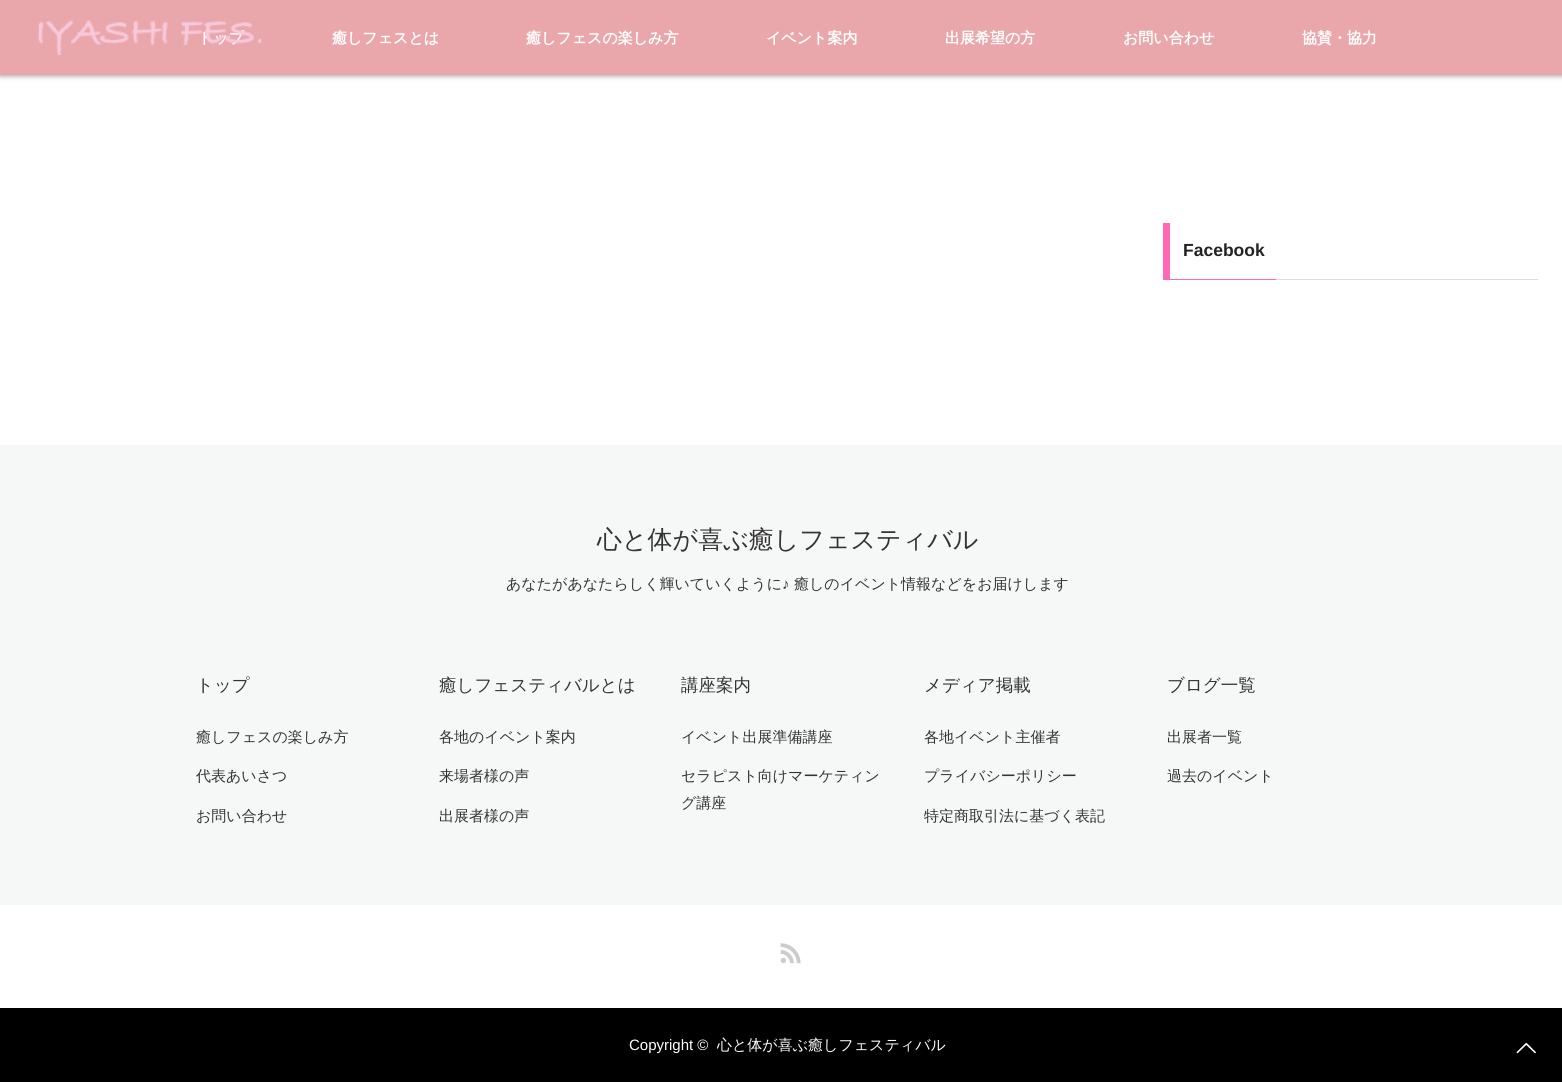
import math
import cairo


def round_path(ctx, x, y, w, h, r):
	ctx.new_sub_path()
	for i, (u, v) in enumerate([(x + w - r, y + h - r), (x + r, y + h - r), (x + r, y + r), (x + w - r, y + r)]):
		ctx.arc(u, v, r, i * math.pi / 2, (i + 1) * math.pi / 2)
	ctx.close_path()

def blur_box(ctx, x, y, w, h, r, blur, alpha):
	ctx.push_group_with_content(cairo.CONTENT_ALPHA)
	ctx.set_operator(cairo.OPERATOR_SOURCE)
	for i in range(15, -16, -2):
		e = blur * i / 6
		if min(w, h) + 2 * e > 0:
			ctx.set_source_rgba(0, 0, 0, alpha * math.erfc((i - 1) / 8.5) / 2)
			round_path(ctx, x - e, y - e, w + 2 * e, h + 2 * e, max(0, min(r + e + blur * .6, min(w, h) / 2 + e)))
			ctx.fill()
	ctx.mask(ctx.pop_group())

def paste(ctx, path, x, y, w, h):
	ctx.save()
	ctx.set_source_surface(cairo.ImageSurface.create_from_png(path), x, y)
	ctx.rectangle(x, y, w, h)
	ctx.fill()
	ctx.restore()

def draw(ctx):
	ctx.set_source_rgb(1, 1, 1)
	ctx.paint()
	ctx.set_source_rgb(0, 0, 0)
	blur_box(ctx, 0, 0, 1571, 75, 0, 3, 0.5)
	ctx.set_source_rgb(0.914, 0.655, 0.671)
	ctx.rectangle(0, 0, 1562, 75)
	ctx.fill()
	ctx.select_font_face('WenQuanYi Zen Hei', cairo.FONT_SLANT_NORMAL, cairo.FONT_WEIGHT_BOLD)
	ctx.set_font_size(15)
	ctx.set_source_rgb(1, 1, 1)
	ctx.move_to(198, 43)
	ctx.show_text('トップ')
	paste(ctx, 'media/1.png', 37, 20, 225, 35)
	for x, y, s in [
		(332, 43, '癒しフェスとは'),
		(526, 43, '癒しフェスの楽しみ方'),
		(766, 43, 'イベント案内'),
		(945, 43, '出展希望の方'),
		(1123, 43, 'お問い合わせ'),
		(1302, 43, '協賛・協力'),
	]:
		ctx.move_to(x, y)
		ctx.show_text(s)
	ctx.set_source_rgb(0.867, 0.867, 0.867)
	ctx.rectangle(1276, 279, 262, 1)
	ctx.fill()
	ctx.set_source_rgb(1, 0.412, 0.706)
	ctx.rectangle(1163, 279, 113, 1)
	ctx.rectangle(1163, 223, 7, 57)
	ctx.fill()
	ctx.select_font_face('Liberation Sans', cairo.FONT_SLANT_NORMAL, cairo.FONT_WEIGHT_BOLD)
	ctx.set_font_size(17.5)
	ctx.set_source_rgb(0.133, 0.133, 0.133)
	ctx.move_to(1183, 256)
	ctx.show_text('Facebook')
	ctx.set_source_rgb(0.961, 0.969, 0.965)
	ctx.rectangle(0, 445, 1562, 460)
	ctx.fill()
	ctx.select_font_face('WenQuanYi Zen Hei Medium')
	ctx.set_font_size(25)
	ctx.set_source_rgb(0.2, 0.2, 0.2)
	ctx.move_to(597, 548)
	ctx.show_text('心と体が喜ぶ癒しフェスティバル')
	ctx.set_font_size(15)
	ctx.move_to(506, 589)
	ctx.show_text('あなたがあなたらしく輝いていくように')
	ctx.select_font_face('Liberation Sans')
	ctx.move_to(782, 589)
	ctx.show_text('♪')
	ctx.select_font_face('WenQuanYi Zen Hei Medium')
	ctx.move_to(794, 589)
	ctx.show_text('癒しのイベント情報などをお届けします')
	ctx.set_font_size(17.5)
	ctx.move_to(196, 691)
	ctx.show_text('トップ')
	ctx.set_font_size(15)
	for x, y, s in [
		(196, 742, '癒しフェスの楽しみ方'),
		(196, 781, '代表あいさつ'),
		(196, 821, 'お問い合わせ'),
	]:
		ctx.move_to(x, y)
		ctx.show_text(s)
	ctx.set_font_size(17.5)
	ctx.move_to(439, 691)
	ctx.show_text('癒しフェスティバルとは')
	ctx.set_font_size(15)
	for x, y, s in [
		(439, 742, '各地のイベント案内'),
		(439, 781, '来場者様の声'),
		(439, 821, '出展者様の声'),
	]:
		ctx.move_to(x, y)
		ctx.show_text(s)
	ctx.set_font_size(17.5)
	ctx.move_to(681, 691)
	ctx.show_text('講座案内')
	ctx.set_font_size(15)
	for x, y, s in [
		(681, 742, 'イベント出展準備講座'),
		(681, 781, 'セラピスト向けマーケティン'),
		(681, 808, 'グ講座'),
	]:
		ctx.move_to(x, y)
		ctx.show_text(s)
	ctx.set_font_size(17.5)
	ctx.move_to(924, 691)
	ctx.show_text('メディア掲載')
	ctx.set_font_size(15)
	for x, y, s in [
		(924, 742, '各地イベント主催者'),
		(924, 781, 'プライバシーポリシー'),
		(924, 821, '特定商取引法に基づく表記'),
	]:
		ctx.move_to(x, y)
		ctx.show_text(s)
	ctx.set_font_size(17.5)
	ctx.move_to(1167, 691)
	ctx.show_text('ブログ一覧')
	ctx.set_font_size(15)
	ctx.move_to(1167, 742)
	ctx.show_text('出展者一覧')
	ctx.move_to(1167, 781)
	ctx.show_text('過去のイベント')
	paste(ctx, 'media/2.png', 780, 943, 21, 21)
	ctx.set_source_rgb(0, 0, 0)
	ctx.rectangle(0, 1008, 1562, 74)
	ctx.fill()
	ctx.select_font_face('Liberation Sans')
	ctx.set_source_rgb(1, 1, 1)
	ctx.move_to(629, 1050)
	ctx.show_text('Copyright ©')
	ctx.select_font_face('WenQuanYi Zen Hei Medium')
	ctx.move_to(717, 1050)
	ctx.show_text('心と体が喜ぶ癒しフェスティバル')
	paste(ctx, 'media/3.png', 1516, 1042, 20, 12)


surface = cairo.ImageSurface(cairo.FORMAT_RGB24, 1562, 1082)
ctx = cairo.Context(surface)
options = cairo.FontOptions()
options.set_hint_metrics(cairo.HINT_METRICS_OFF)
options.set_hint_style(cairo.HINT_STYLE_NONE)
ctx.set_font_options(options)
ctx.set_miter_limit(4)
draw(ctx)
surface.write_to_png('image.png')
